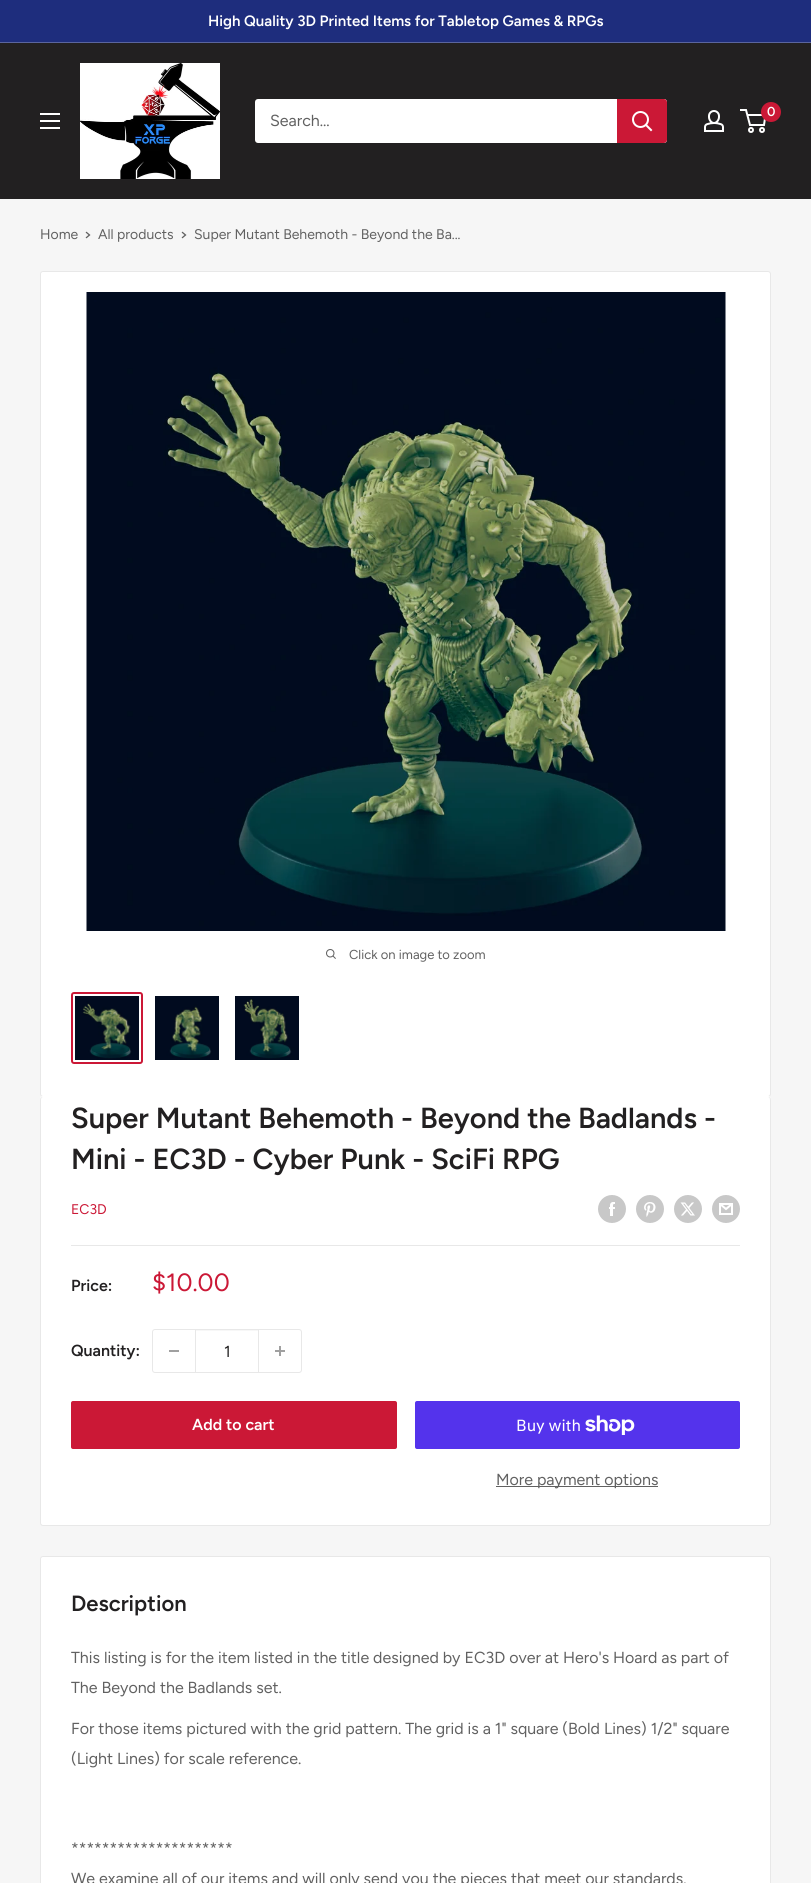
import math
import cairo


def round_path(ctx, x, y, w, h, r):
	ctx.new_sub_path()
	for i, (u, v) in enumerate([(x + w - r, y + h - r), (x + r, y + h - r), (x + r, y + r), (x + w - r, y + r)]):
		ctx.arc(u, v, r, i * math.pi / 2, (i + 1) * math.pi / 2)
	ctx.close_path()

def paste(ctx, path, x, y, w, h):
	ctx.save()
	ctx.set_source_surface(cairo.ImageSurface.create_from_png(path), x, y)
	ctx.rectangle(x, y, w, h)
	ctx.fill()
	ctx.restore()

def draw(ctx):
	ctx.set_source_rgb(0.961, 0.961, 0.961)
	ctx.paint()
	ctx.set_source_rgb(0.118, 0.176, 0.49)
	ctx.rectangle(0, 0, 811, 42)
	ctx.fill()
	ctx.set_source_rgb(0.357, 0.396, 0.616)
	ctx.rectangle(0, 42, 811, 1)
	ctx.fill()
	ctx.select_font_face('Figtree SemiBold')
	ctx.set_font_size(15)
	ctx.set_source_rgb(1, 1, 1)
	ctx.move_to(208, 26)
	ctx.show_text('High Quality 3D Printed Items for Tabletop Games & RPGs')
	ctx.set_source_rgb(0.133, 0.125, 0.129)
	ctx.rectangle(0, 43, 811, 156)
	ctx.fill()
	paste(ctx, 'media/1.png', 80, 63, 140, 116)
	paste(ctx, 'media/2.png', 704, 110, 20, 22)
	ctx.arc(751, 130, 2, 0, 2 * math.pi)
	ctx.set_source_rgb(1, 1, 1)
	ctx.stroke()
	ctx.arc(762, 130, 2, 0, 2 * math.pi)
	ctx.stroke()
	ctx.new_path()
	ctx.move_to(747.5, 115)
	ctx.line_to(765.5, 115)
	ctx.line_to(764, 125)
	ctx.line_to(750, 125)
	ctx.line_to(746, 110)
	ctx.line_to(740, 110)
	ctx.stroke()
	ctx.set_source_rgb(0.796, 0.094, 0.212)
	ctx.arc(771, 112, 10, 0, 2 * math.pi)
	ctx.fill()
	ctx.set_font_size(13)
	ctx.set_source_rgb(1, 1, 1)
	ctx.move_to(767, 116)
	ctx.show_text('0')
	paste(ctx, 'media/3.png', 40, 113, 20, 16)
	round_path(ctx, 255, 99, 412, 44, 3)
	ctx.fill()
	ctx.select_font_face('Figtree')
	ctx.set_font_size(16)
	ctx.set_source_rgb(0.38, 0.38, 0.38)
	ctx.move_to(270, 126)
	ctx.show_text('Search...')
	ctx.set_source_rgb(0.796, 0.094, 0.212)
	ctx.new_path()
	ctx.move_to(617, 99)
	ctx.line_to(664, 99)
	ctx.curve_to(665.5, 99, 667, 100.5, 667, 102)
	ctx.line_to(667, 140)
	ctx.curve_to(667, 141.5, 665.5, 143, 664, 143)
	ctx.line_to(617, 143)
	ctx.close_path()
	ctx.fill()
	ctx.new_path()
	ctx.move_to(651, 130)
	ctx.line_to(646, 125)
	ctx.set_source_rgb(1, 1, 1)
	ctx.set_line_cap(cairo.LINE_CAP_SQUARE)
	ctx.stroke()
	ctx.arc(640.5, 119.5, 7.5, 0, 2 * math.pi)
	ctx.set_line_cap(cairo.LINE_CAP_BUTT)
	ctx.stroke()
	ctx.set_font_size(14)
	ctx.set_source_rgb(0.38, 0.38, 0.38)
	ctx.move_to(40, 239)
	ctx.show_text('Home')
	ctx.new_path()
	ctx.move_to(86.5, 232.5)
	ctx.line_to(89.5, 235)
	ctx.line_to(86.5, 237.5)
	ctx.set_line_width(1.3)
	ctx.set_line_cap(cairo.LINE_CAP_SQUARE)
	ctx.stroke()
	ctx.move_to(98, 239)
	ctx.show_text('All products')
	ctx.new_path()
	ctx.move_to(182.5, 232.5)
	ctx.line_to(185.5, 235)
	ctx.line_to(182.5, 237.5)
	ctx.stroke()
	ctx.move_to(194, 239)
	ctx.show_text('Super Mutant Behemoth - Beyond the Ba...')
	ctx.set_source_rgb(1, 1, 1)
	round_path(ctx, 40.5, 271.5, 730, 825, 2.5)
	ctx.fill_preserve()
	ctx.set_source_rgb(0.91, 0.91, 0.91)
	ctx.set_line_width(1)
	ctx.set_line_cap(cairo.LINE_CAP_BUTT)
	ctx.stroke()
	paste(ctx, 'media/4.png', 86, 292, 640, 639)
	paste(ctx, 'media/5.png', 326, 949, 10, 10)
	ctx.set_font_size(13)
	ctx.set_source_rgb(0.38, 0.38, 0.38)
	ctx.move_to(349, 959)
	ctx.show_text('Click on image to zoom')
	round_path(ctx, 72, 993, 70, 70, 2)
	ctx.set_source_rgb(0.796, 0.094, 0.212)
	ctx.set_line_width(2)
	ctx.stroke()
	paste(ctx, 'media/6.png', 75, 996, 64, 64)
	paste(ctx, 'media/7.png', 155, 996, 64, 64)
	paste(ctx, 'media/8.png', 235, 996, 64, 64)
	ctx.set_source_rgb(1, 1, 1)
	ctx.new_path()
	ctx.move_to(43, 1096)
	ctx.curve_to(41, 1096, 40, 1098, 40, 1100)
	ctx.curve_to(40, 1098, 41, 1097, 43, 1097)
	ctx.line_to(768, 1097)
	ctx.curve_to(770, 1097, 771, 1098, 771, 1100)
	ctx.curve_to(771, 1098, 770, 1096, 768, 1096)
	ctx.close_path()
	ctx.fill()
	round_path(ctx, 40, 1097, 731, 429, 3)
	ctx.fill()
	ctx.set_source_rgb(0.91, 0.91, 0.91)
	ctx.set_fill_rule(cairo.FILL_RULE_EVEN_ODD)
	ctx.new_path()
	ctx.move_to(43, 1097)
	ctx.line_to(768, 1097)
	ctx.curve_to(770, 1097, 771, 1098, 771, 1100)
	ctx.line_to(771, 1523)
	ctx.curve_to(771, 1525, 770, 1526, 768, 1526)
	ctx.line_to(43, 1526)
	ctx.curve_to(41, 1526, 40, 1525, 40, 1523)
	ctx.line_to(40, 1100)
	ctx.curve_to(40, 1098, 41, 1097, 43, 1097)
	ctx.close_path()
	ctx.move_to(43, 1097)
	ctx.line_to(768, 1097)
	ctx.curve_to(769, 1097, 770, 1098, 770, 1100)
	ctx.line_to(770, 1523)
	ctx.curve_to(770, 1524, 769, 1525, 768, 1525)
	ctx.line_to(43, 1525)
	ctx.curve_to(42, 1525, 41, 1524, 41, 1523)
	ctx.line_to(41, 1100)
	ctx.curve_to(41, 1098, 42, 1097, 43, 1097)
	ctx.close_path()
	ctx.fill()
	ctx.select_font_face('Figtree SemiBold')
	ctx.set_font_size(29)
	ctx.set_source_rgb(0.133, 0.125, 0.129)
	ctx.move_to(71, 1128)
	ctx.show_text('Super Mutant Behemoth - Beyond the Badlands -')
	ctx.move_to(71, 1169)
	ctx.show_text('Mini - EC3D - Cyber Punk - SciFi RPG')
	ctx.select_font_face('Figtree')
	ctx.set_font_size(14)
	ctx.set_source_rgb(0.796, 0.094, 0.212)
	ctx.move_to(71, 1214)
	ctx.show_text('EC3D')
	paste(ctx, 'media/9.png', 598, 1195, 28, 28)
	paste(ctx, 'media/10.png', 636, 1195, 28, 28)
	paste(ctx, 'media/11.png', 674, 1195, 28, 28)
	paste(ctx, 'media/12.png', 712, 1195, 28, 28)
	ctx.set_source_rgb(0.91, 0.91, 0.91)
	ctx.rectangle(71, 1245, 669, 1)
	ctx.fill()
	ctx.select_font_face('Figtree SemiBold')
	ctx.set_font_size(16)
	ctx.set_source_rgb(0.133, 0.125, 0.129)
	ctx.move_to(71, 1291)
	ctx.show_text('Price:')
	ctx.select_font_face('Figtree')
	ctx.set_font_size(25)
	ctx.set_source_rgb(0.796, 0.094, 0.212)
	ctx.move_to(152, 1291)
	ctx.show_text('$10.00')
	ctx.select_font_face('Figtree SemiBold')
	ctx.set_font_size(16)
	ctx.set_source_rgb(0.133, 0.125, 0.129)
	ctx.move_to(71, 1356)
	ctx.show_text('Quantity:')
	round_path(ctx, 152.5, 1329.5, 149, 43, 2.5)
	ctx.set_source_rgb(0.91, 0.91, 0.91)
	ctx.set_line_width(1)
	ctx.stroke()
	ctx.set_source_rgb(0.627, 0.627, 0.627)
	ctx.rectangle(169, 1350, 10, 2)
	ctx.fill()
	ctx.set_source_rgb(0.965, 0.965, 0.965)
	ctx.rectangle(196, 1330, 62, 1)
	ctx.fill()
	ctx.set_source_rgb(0.91, 0.91, 0.91)
	ctx.rectangle(258, 1330, 1, 42)
	ctx.rectangle(195, 1330, 1, 42)
	ctx.fill()
	ctx.select_font_face('Figtree')
	ctx.set_source_rgb(0.133, 0.125, 0.129)
	ctx.move_to(224, 1357)
	ctx.show_text('1')
	paste(ctx, 'media/13.png', 275, 1346, 10, 10)
	ctx.set_source_rgb(0.796, 0.094, 0.212)
	round_path(ctx, 71, 1401, 326, 48, 2)
	ctx.fill()
	ctx.select_font_face('Figtree SemiBold')
	ctx.set_source_rgb(1, 1, 1)
	ctx.move_to(192, 1430)
	ctx.show_text('Add to cart')
	ctx.set_source_rgb(0.329, 0.2, 0.922)
	round_path(ctx, 415, 1401, 325, 48, 2)
	ctx.fill()
	ctx.select_font_face('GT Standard')
	ctx.set_source_rgb(1, 1, 1)
	ctx.move_to(516, 1431)
	ctx.show_text('Buy with')
	paste(ctx, 'media/14.png', 585, 1415, 50, 20)
	ctx.set_source_rgb(0.38, 0.38, 0.38)
	ctx.rectangle(496, 1486, 162, 1)
	ctx.fill()
	ctx.select_font_face('Figtree')
	ctx.move_to(496, 1485)
	ctx.show_text('More payment options')
	ctx.set_source_rgb(1, 1, 1)
	round_path(ctx, 40.5, 1556.5, 730, 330, 2.5)
	ctx.fill_preserve()
	ctx.set_source_rgb(0.91, 0.91, 0.91)
	ctx.stroke()
	ctx.select_font_face('Figtree SemiBold')
	ctx.set_font_size(22)
	ctx.set_source_rgb(0.133, 0.125, 0.129)
	ctx.move_to(71, 1611)
	ctx.show_text('Description')
	ctx.select_font_face('Figtree')
	ctx.set_font_size(16)
	ctx.set_source_rgb(0.38, 0.38, 0.38)
	for x, y, s in [
		(71, 1663, 'This listing is for the item listed in the title designed by EC3D over at Hero\'s Hoard as part of'),
		(71, 1693, 'The Beyond the Badlands set.'),
		(71, 1734, 'For those items pictured with the grid pattern. The grid is a 1" square (Bold Lines) 1/2" square'),
		(71, 1764, '(Light Lines) for scale reference.'),
		(71, 1854, '*********************'),
		(71, 1884, 'We examine all of our items and will only send you the pieces that meet our standards.'),
	]:
		ctx.move_to(x, y)
		ctx.show_text(s)


surface = cairo.ImageSurface(cairo.FORMAT_RGB24, 811, 1883)
ctx = cairo.Context(surface)
options = cairo.FontOptions()
options.set_hint_metrics(cairo.HINT_METRICS_OFF)
options.set_hint_style(cairo.HINT_STYLE_NONE)
ctx.set_font_options(options)
ctx.set_miter_limit(4)
draw(ctx)
surface.write_to_png('image.png')
